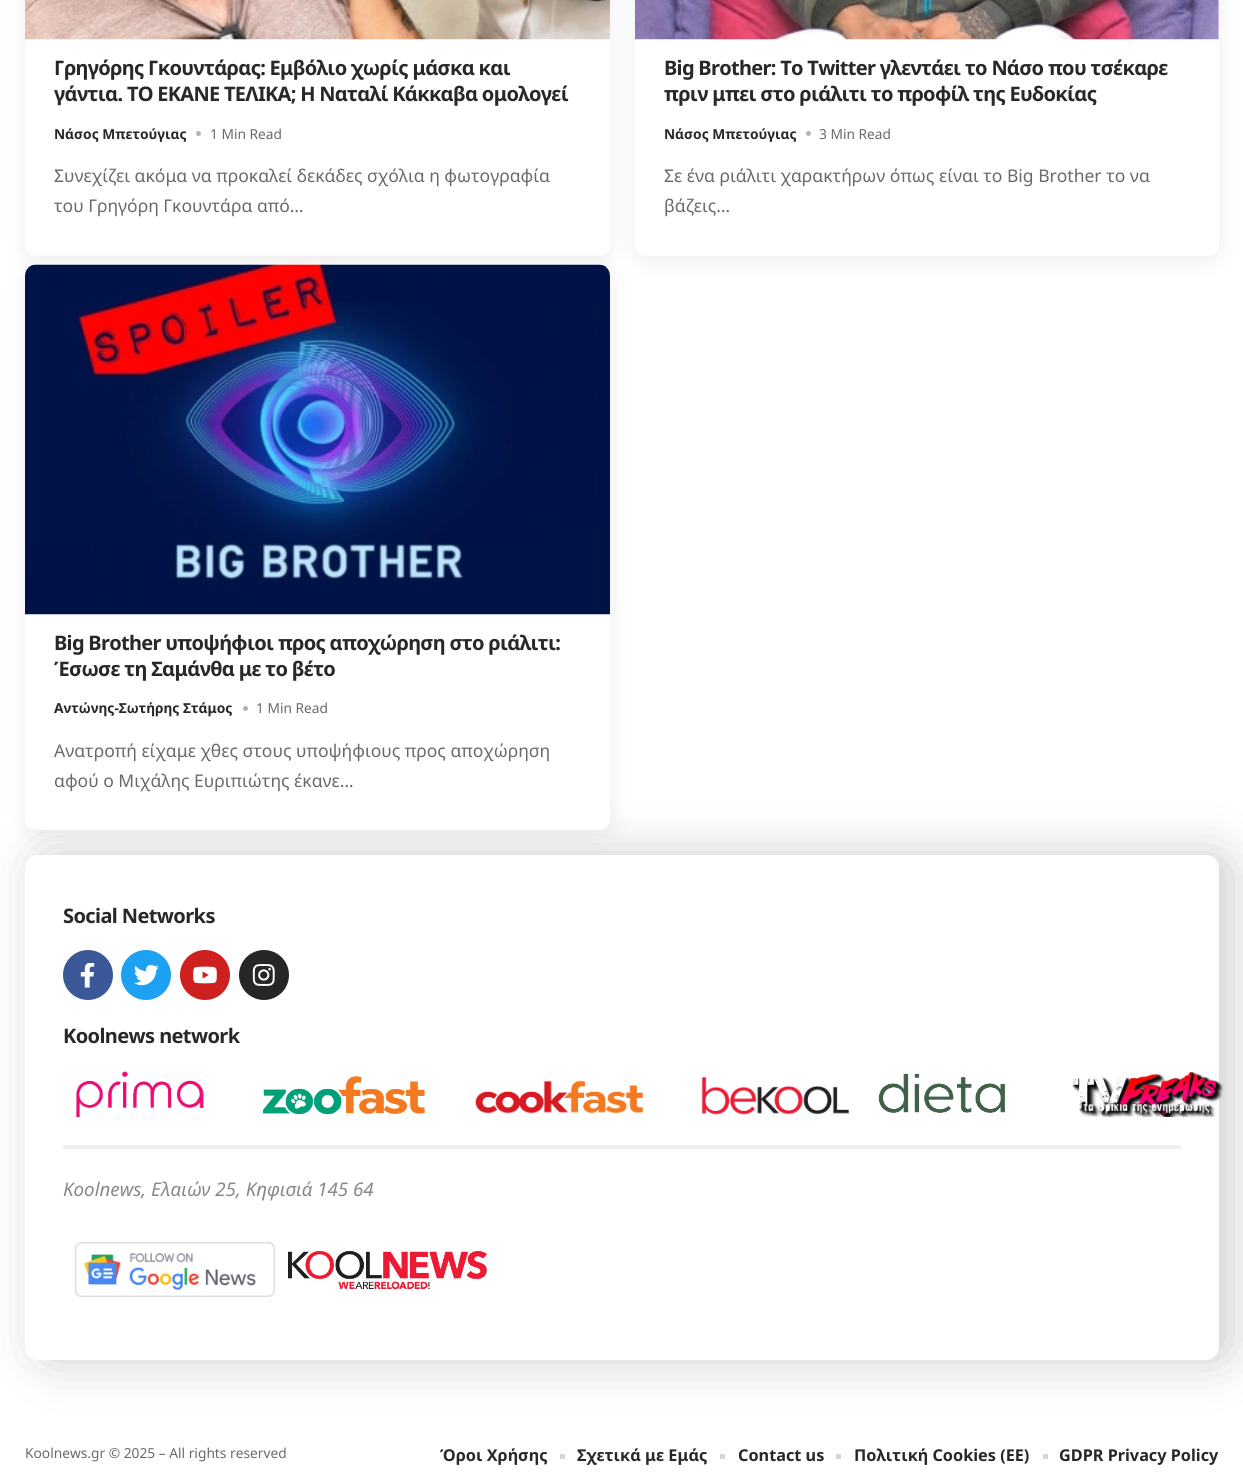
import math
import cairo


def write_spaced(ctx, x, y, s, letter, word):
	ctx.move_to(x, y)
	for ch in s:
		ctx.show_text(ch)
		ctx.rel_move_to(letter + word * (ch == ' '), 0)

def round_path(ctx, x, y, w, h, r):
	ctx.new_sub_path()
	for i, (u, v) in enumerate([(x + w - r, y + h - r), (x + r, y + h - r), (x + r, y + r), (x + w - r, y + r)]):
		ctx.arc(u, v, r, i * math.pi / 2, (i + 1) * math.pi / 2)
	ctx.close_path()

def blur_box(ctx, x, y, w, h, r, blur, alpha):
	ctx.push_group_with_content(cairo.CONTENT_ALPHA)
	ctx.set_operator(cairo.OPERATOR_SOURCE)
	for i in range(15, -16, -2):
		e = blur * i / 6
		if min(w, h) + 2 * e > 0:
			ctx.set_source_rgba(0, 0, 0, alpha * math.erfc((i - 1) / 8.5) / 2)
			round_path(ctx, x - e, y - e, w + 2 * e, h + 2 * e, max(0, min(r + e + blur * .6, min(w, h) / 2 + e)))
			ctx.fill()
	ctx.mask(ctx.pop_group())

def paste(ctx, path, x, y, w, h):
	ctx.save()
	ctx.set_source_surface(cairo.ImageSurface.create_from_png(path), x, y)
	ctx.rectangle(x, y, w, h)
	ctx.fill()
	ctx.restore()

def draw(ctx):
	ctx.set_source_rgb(1, 1, 1)
	ctx.paint()
	ctx.set_source_rgb(0, 0, 0)
	blur_box(ctx, 25, -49, 585, 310, 11, 12.5, 0.07)
	ctx.set_source_rgb(1, 1, 1)
	round_path(ctx, 25, -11, 585, 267, 11)
	ctx.fill()
	ctx.set_source_rgb(0, 0, 0)
	blur_box(ctx, 635, -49, 584, 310, 11, 12.5, 0.07)
	paste(ctx, 'media/1.png', 25, 0, 585, 40)
	ctx.select_font_face('Noto Sans', cairo.FONT_SLANT_NORMAL, cairo.FONT_WEIGHT_BOLD)
	ctx.set_font_size(20)
	ctx.set_source_rgb(0.157, 0.157, 0.157)
	write_spaced(ctx, 54, 75, 'Γρηγόρης Γκουντάρας: Εμβόλιο χωρίς μάσκα και', -0.7, 0)
	write_spaced(ctx, 54, 101, 'γάντια. ΤΟ ΕΚΑΝΕ ΤΕΛΙΚΑ; Η Ναταλί Κάκκαβα ομολογεί', -0.7, 0)
	ctx.set_font_size(13.75)
	ctx.move_to(54, 139)
	ctx.show_text('Νάσος Μπετούγιας')
	ctx.set_source_rgb(0.702, 0.702, 0.702)
	ctx.new_path()
	ctx.arc(198.5, 133.5, 2.5, 0, 2 * math.pi)
	ctx.fill()
	ctx.select_font_face('Noto Sans')
	ctx.set_source_rgb(0.412, 0.412, 0.412)
	ctx.move_to(210, 139)
	ctx.show_text('1 Min Read')
	ctx.set_font_size(17.5)
	ctx.move_to(54, 182)
	ctx.show_text('Συνεχίζει ακόμα να προκαλεί δεκάδες σχόλια η φωτογραφία')
	ctx.move_to(54, 212)
	ctx.show_text('του Γρηγόρη Γκουντάρα από…')
	ctx.set_source_rgb(1, 1, 1)
	round_path(ctx, 635, -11, 584, 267, 11)
	ctx.fill()
	paste(ctx, 'media/2.png', 635, 0, 584, 40)
	ctx.select_font_face('Noto Sans', cairo.FONT_SLANT_NORMAL, cairo.FONT_WEIGHT_BOLD)
	ctx.set_font_size(20)
	ctx.set_source_rgb(0.157, 0.157, 0.157)
	write_spaced(ctx, 664, 75, 'Big Brother: Το Twitter γλεντάει το Νάσο που τσέκαρε', -0.7, 0)
	write_spaced(ctx, 664, 101, 'πριν μπει στο ριάλιτι το προφίλ της Ευδοκίας', -0.7, 0)
	ctx.set_font_size(13.75)
	ctx.move_to(664, 139)
	ctx.show_text('Νάσος Μπετούγιας')
	ctx.set_source_rgb(0.702, 0.702, 0.702)
	ctx.new_path()
	ctx.arc(808.5, 133.5, 2.5, 0, 2 * math.pi)
	ctx.fill()
	ctx.select_font_face('Noto Sans')
	ctx.set_source_rgb(0.412, 0.412, 0.412)
	ctx.move_to(819, 139)
	ctx.show_text('3 Min Read')
	ctx.set_font_size(17.5)
	ctx.move_to(664, 182)
	ctx.show_text('Σε ένα ριάλιτι χαρακτήρων όπως είναι το Big Brother το να')
	ctx.move_to(664, 212)
	ctx.show_text('βάζεις…')
	ctx.set_source_rgb(0, 0, 0)
	blur_box(ctx, 38, 855, 1193, 505, 13, 25, 0.2)
	ctx.set_source_rgb(1, 1, 1)
	round_path(ctx, 25, 855, 1194, 505, 13)
	ctx.fill()
	ctx.set_source_rgb(0, 0, 0)
	blur_box(ctx, 25, 270, 585, 565, 11, 12.5, 0.07)
	ctx.set_source_rgb(1, 1, 1)
	round_path(ctx, 25, 265, 585, 565, 11)
	ctx.fill()
	paste(ctx, 'media/3.png', 25, 264, 585, 351)
	ctx.select_font_face('Noto Sans', cairo.FONT_SLANT_NORMAL, cairo.FONT_WEIGHT_BOLD)
	ctx.set_font_size(20)
	ctx.set_source_rgb(0.157, 0.157, 0.157)
	write_spaced(ctx, 54, 650, 'Big Brother υποψήφιοι προς αποχώρηση στο ριάλιτι:', -0.7, 0)
	write_spaced(ctx, 54, 676, 'Έσωσε τη Σαμάνθα με το βέτο', -0.7, 0)
	ctx.set_font_size(13.75)
	ctx.move_to(54, 713)
	ctx.show_text('Αντώνης-Σωτήρης Στάμος')
	ctx.set_source_rgb(0.702, 0.702, 0.702)
	ctx.new_path()
	ctx.arc(245.5, 708.5, 2.5, 0, 2 * math.pi)
	ctx.fill()
	ctx.select_font_face('Noto Sans')
	ctx.set_source_rgb(0.412, 0.412, 0.412)
	ctx.move_to(256, 713)
	ctx.show_text('1 Min Read')
	ctx.set_font_size(17.5)
	ctx.move_to(54, 757)
	ctx.show_text('Ανατροπή είχαμε χθες στους υποψήφιους προς αποχώρηση')
	ctx.move_to(54, 787)
	ctx.show_text('αφού ο Μιχάλης Ευριπιώτης έκανε…')
	ctx.select_font_face('Noto Sans', cairo.FONT_SLANT_NORMAL, cairo.FONT_WEIGHT_BOLD)
	ctx.set_font_size(20)
	ctx.set_source_rgb(0.157, 0.157, 0.157)
	write_spaced(ctx, 63, 923, 'Social Networks', -0.6, 0)
	ctx.set_source_rgb(0.231, 0.349, 0.596)
	ctx.new_path()
	ctx.arc(88, 975, 25, 0, 2 * math.pi)
	ctx.fill()
	paste(ctx, 'media/4.png', 80, 963, 15, 25)
	ctx.set_source_rgb(0.114, 0.631, 0.949)
	ctx.arc(146, 975, 25, 0, 2 * math.pi)
	ctx.fill()
	paste(ctx, 'media/5.png', 134, 964, 25, 22)
	ctx.set_source_rgb(0.804, 0.125, 0.122)
	ctx.arc(205, 975, 25, 0, 2 * math.pi)
	ctx.fill()
	paste(ctx, 'media/6.png', 193, 966, 24, 18)
	ctx.set_source_rgb(0.149, 0.149, 0.149)
	ctx.arc(264, 975, 25, 0, 2 * math.pi)
	ctx.fill()
	paste(ctx, 'media/7.png', 252, 964, 23, 22)
	ctx.set_source_rgb(0.157, 0.157, 0.157)
	write_spaced(ctx, 63, 1043, 'Koolnews network', -0.6, 0)
	paste(ctx, 'media/8.png', 76, 1071, 128, 47)
	paste(ctx, 'media/9.png', 262, 1076, 163, 39)
	paste(ctx, 'media/10.png', 475, 1080, 169, 34)
	paste(ctx, 'media/11.png', 701, 1077, 148, 38)
	paste(ctx, 'media/12.png', 878, 1073, 128, 40)
	paste(ctx, 'media/13.png', 1072, 1072, 152, 45)
	ctx.set_source_rgb(0.937, 0.937, 0.937)
	ctx.rectangle(63, 1145, 1118, 4)
	ctx.fill()
	ctx.select_font_face('Noto Sans', cairo.FONT_SLANT_ITALIC)
	ctx.set_font_size(18.75)
	ctx.set_source_rgb(0.533, 0.533, 0.533)
	ctx.move_to(63, 1196)
	ctx.show_text('Koolnews, Ελαιών 25, Κηφισιά 145 64')
	paste(ctx, 'media/14.png', 75, 1242, 200, 55)
	paste(ctx, 'media/15.png', 288, 1251, 199, 39)
	ctx.select_font_face('Noto Sans')
	ctx.set_font_size(13.75)
	ctx.set_source_rgb(0.412, 0.412, 0.412)
	ctx.move_to(25, 1458)
	ctx.show_text('Koolnews.gr © 2025 – All rights reserved')
	ctx.select_font_face('Noto Sans', cairo.FONT_SLANT_NORMAL, cairo.FONT_WEIGHT_BOLD)
	ctx.set_font_size(16.25)
	ctx.set_source_rgb(0.157, 0.157, 0.157)
	ctx.move_to(440, 1461)
	ctx.show_text('Όροι Χρήσης')
	ctx.set_source_rgb(0.831, 0.831, 0.831)
	ctx.rectangle(560, 1454, 5, 5)
	ctx.fill()
	ctx.set_source_rgb(0.157, 0.157, 0.157)
	ctx.move_to(577, 1461)
	ctx.show_text('Σχετικά με Εμάς')
	ctx.set_source_rgb(0.831, 0.831, 0.831)
	ctx.rectangle(720, 1454, 5, 5)
	ctx.fill()
	ctx.set_source_rgb(0.157, 0.157, 0.157)
	ctx.move_to(738, 1461)
	ctx.show_text('Contact us')
	ctx.set_source_rgb(0.831, 0.831, 0.831)
	ctx.rectangle(836, 1454, 5, 5)
	ctx.fill()
	ctx.set_source_rgb(0.157, 0.157, 0.157)
	ctx.move_to(854, 1461)
	ctx.show_text('Πολιτική Cookies (ΕΕ)')
	ctx.set_source_rgb(0.831, 0.831, 0.831)
	ctx.rectangle(1043, 1454, 5, 5)
	ctx.fill()
	ctx.set_source_rgb(0.157, 0.157, 0.157)
	ctx.move_to(1059, 1461)
	ctx.show_text('GDPR Privacy Policy')


surface = cairo.ImageSurface(cairo.FORMAT_RGB24, 1243, 1479)
ctx = cairo.Context(surface)
options = cairo.FontOptions()
options.set_hint_metrics(cairo.HINT_METRICS_OFF)
options.set_hint_style(cairo.HINT_STYLE_NONE)
ctx.set_font_options(options)
ctx.set_miter_limit(4)
draw(ctx)
surface.write_to_png('image.png')
